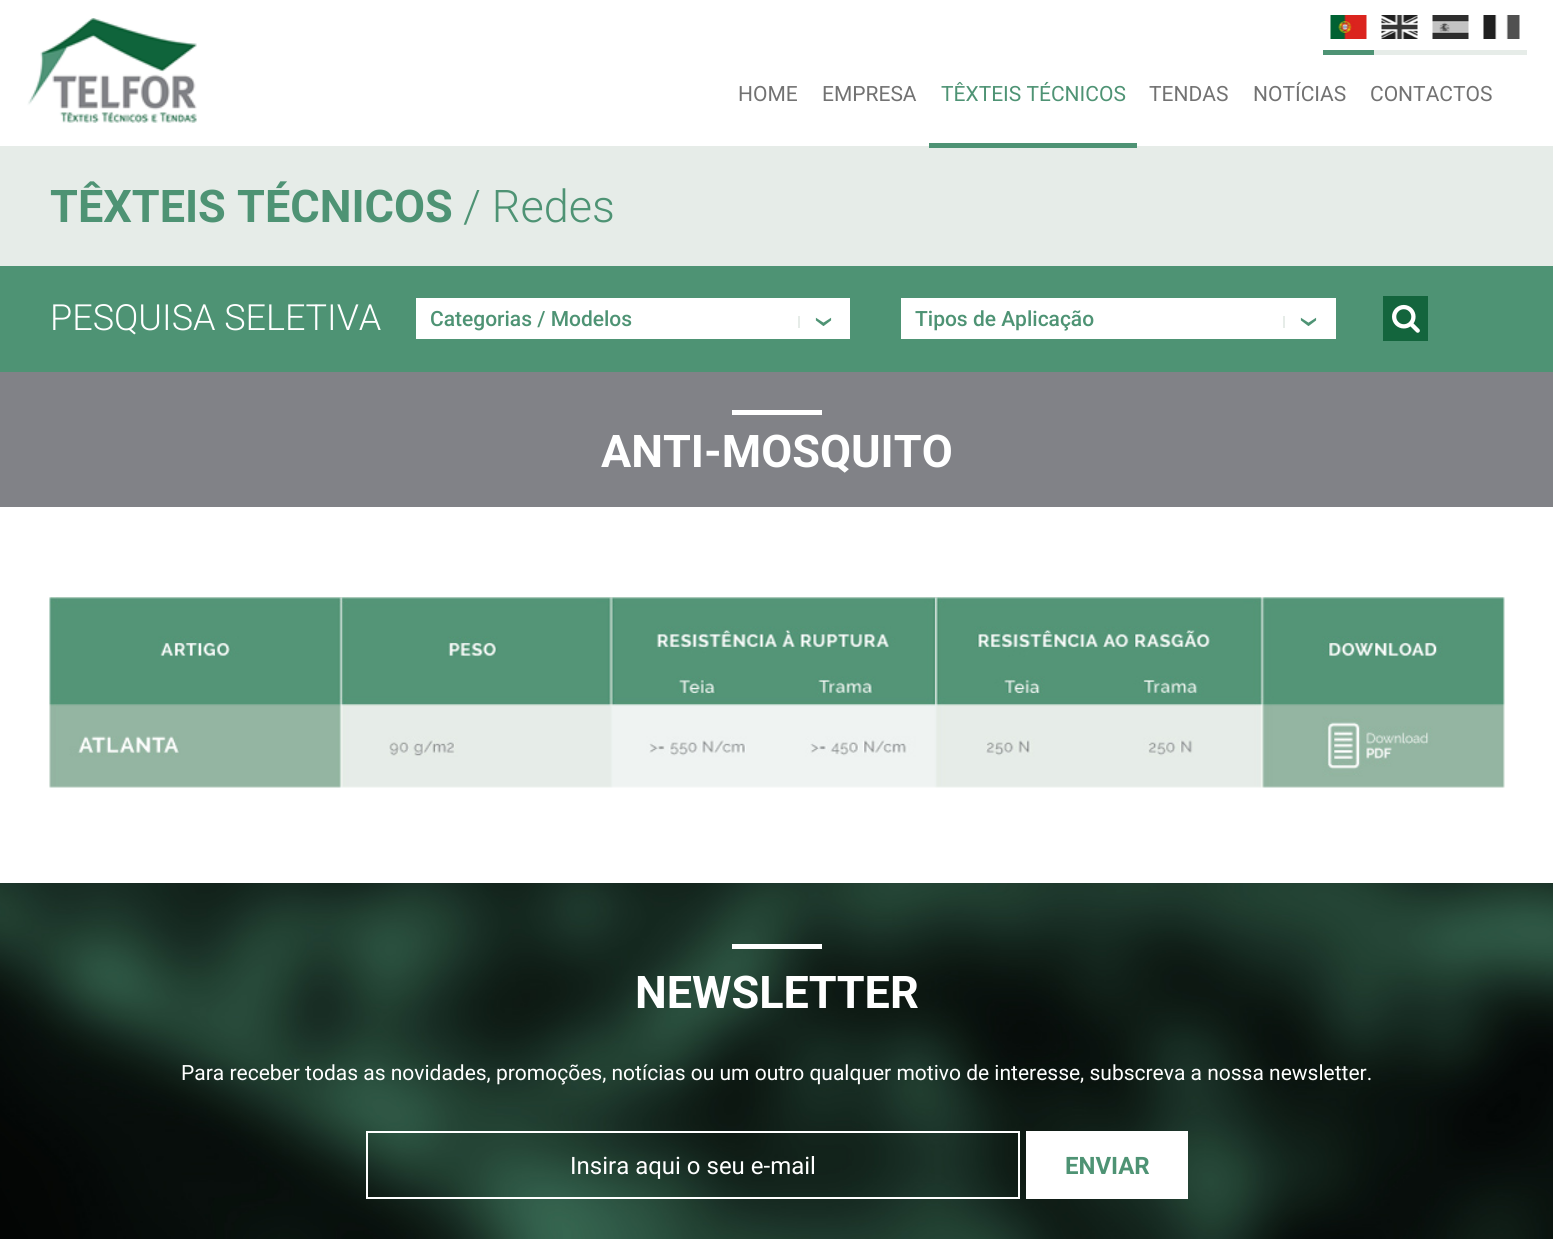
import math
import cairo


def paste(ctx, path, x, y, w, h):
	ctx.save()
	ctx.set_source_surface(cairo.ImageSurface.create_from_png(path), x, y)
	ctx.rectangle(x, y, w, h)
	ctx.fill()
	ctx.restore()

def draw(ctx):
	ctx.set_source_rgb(1, 1, 1)
	ctx.paint()
	paste(ctx, 'media/1.png', 27, 18, 170, 105)
	paste(ctx, 'media/2.png', 1330, 15, 37, 24)
	paste(ctx, 'media/3.png', 1381, 15, 37, 24)
	paste(ctx, 'media/4.png', 1432, 15, 37, 24)
	paste(ctx, 'media/5.png', 1483, 15, 37, 24)
	ctx.set_source_rgb(0.306, 0.576, 0.455)
	ctx.rectangle(1323, 50, 51, 5)
	ctx.fill()
	ctx.set_source_rgb(0.902, 0.925, 0.91)
	ctx.rectangle(1374, 50, 153, 5)
	ctx.fill()
	ctx.select_font_face('Roboto')
	ctx.set_font_size(21)
	ctx.set_source_rgb(0.447, 0.447, 0.447)
	ctx.move_to(738, 101)
	ctx.show_text('HOME')
	ctx.move_to(822, 101)
	ctx.show_text('EMPRESA')
	ctx.set_source_rgb(0.902, 0.925, 0.91)
	ctx.rectangle(0, 146, 1553, 120)
	ctx.fill()
	ctx.set_source_rgb(0.306, 0.576, 0.455)
	ctx.rectangle(929, 143, 208, 5)
	ctx.fill()
	ctx.move_to(941, 101)
	ctx.show_text('TÊXTEIS TÉCNICOS')
	ctx.set_source_rgb(0.447, 0.447, 0.447)
	for x, y, s in [
		(1149, 101, 'TENDAS'),
		(1253, 101, 'NOTÍCIAS'),
		(1370, 101, 'CONTACTOS'),
	]:
		ctx.move_to(x, y)
		ctx.show_text(s)
	ctx.select_font_face('Roboto', cairo.FONT_SLANT_NORMAL, cairo.FONT_WEIGHT_BOLD)
	ctx.set_font_size(45)
	ctx.set_source_rgb(0.306, 0.576, 0.455)
	ctx.move_to(50, 222)
	ctx.show_text('TÊXTEIS TÉCNICOS')
	ctx.select_font_face('Roboto Light')
	ctx.move_to(463, 222)
	ctx.show_text('/ Redes')
	ctx.rectangle(0, 266, 1553, 106)
	ctx.fill()
	ctx.set_font_size(36)
	ctx.set_source_rgb(1, 1, 1)
	ctx.move_to(50, 330)
	ctx.show_text('PESQUISA SELETIVA')
	ctx.rectangle(416, 298, 434, 41)
	ctx.fill()
	ctx.save()
	ctx.rectangle(431, 305, 390, 27)
	ctx.clip()
	ctx.select_font_face('Roboto Medium')
	ctx.set_font_size(21)
	ctx.set_source_rgb(0.306, 0.576, 0.455)
	ctx.move_to(430, 326)
	ctx.show_text('Categorias / Modelos')
	ctx.restore()
	ctx.set_source_rgb(0.902, 0.925, 0.91)
	ctx.rectangle(798, 316, 2, 12)
	ctx.fill()
	ctx.select_font_face('Roboto')
	ctx.set_font_size(39)
	ctx.set_source_rgb(0.306, 0.576, 0.455)
	ctx.save()
	ctx.translate(813, 316)
	ctx.rotate(90 * math.pi / 180)
	ctx.move_to(0, 0)
	ctx.show_text('›')
	ctx.restore()
	ctx.set_source_rgb(1, 1, 1)
	ctx.rectangle(901, 298, 435, 41)
	ctx.fill()
	ctx.select_font_face('Roboto Medium')
	ctx.set_font_size(21)
	ctx.set_source_rgb(0.306, 0.576, 0.455)
	ctx.move_to(915, 326)
	ctx.show_text('Tipos de Aplicação')
	ctx.set_source_rgb(0.902, 0.925, 0.91)
	ctx.rectangle(1283, 316, 2, 12)
	ctx.fill()
	ctx.select_font_face('Roboto')
	ctx.set_font_size(39)
	ctx.set_source_rgb(0.306, 0.576, 0.455)
	ctx.save()
	ctx.translate(1298, 316)
	ctx.rotate(90 * math.pi / 180)
	ctx.move_to(0, 0)
	ctx.show_text('›')
	ctx.restore()
	ctx.set_source_rgb(0.075, 0.396, 0.239)
	ctx.rectangle(1383, 296, 45, 45)
	ctx.fill()
	paste(ctx, 'media/6.png', 1392, 304, 28, 29)
	ctx.set_source_rgb(0.506, 0.51, 0.529)
	ctx.rectangle(0, 372, 1553, 135)
	ctx.fill()
	ctx.set_source_rgb(1, 1, 1)
	ctx.rectangle(732, 410, 90, 5)
	ctx.fill()
	ctx.select_font_face('Roboto', cairo.FONT_SLANT_NORMAL, cairo.FONT_WEIGHT_BOLD)
	ctx.set_font_size(45)
	ctx.move_to(601, 467)
	ctx.show_text('ANTI-MOSQUITO')
	paste(ctx, 'media/7.png', 49, 597, 1456, 191)
	paste(ctx, 'media/8.png', 0, 883, 1553, 356)
	ctx.rectangle(732, 944, 90, 5)
	ctx.fill()
	ctx.move_to(635, 1008)
	ctx.show_text('NEWSLETTER')
	ctx.select_font_face('Roboto')
	ctx.set_font_size(21)
	ctx.move_to(181, 1080)
	ctx.show_text('Para receber todas as novidades, promoções, notícias ou um outro qualquer motivo de interesse, subscreva a nossa newsletter.')
	ctx.rectangle(367, 1132, 652, 66)
	ctx.stroke()
	ctx.set_font_size(24)
	ctx.move_to(570, 1174)
	ctx.show_text('Insira aqui o seu e-mail')
	ctx.rectangle(1026, 1131, 162, 68)
	ctx.fill()
	ctx.select_font_face('Roboto', cairo.FONT_SLANT_NORMAL, cairo.FONT_WEIGHT_BOLD)
	ctx.set_source_rgb(0.306, 0.576, 0.455)
	ctx.move_to(1065, 1174)
	ctx.show_text('ENVIAR')


surface = cairo.ImageSurface(cairo.FORMAT_RGB24, 1553, 1239)
ctx = cairo.Context(surface)
options = cairo.FontOptions()
options.set_hint_metrics(cairo.HINT_METRICS_OFF)
options.set_hint_style(cairo.HINT_STYLE_NONE)
ctx.set_font_options(options)
ctx.set_miter_limit(4)
draw(ctx)
surface.write_to_png('image.png')
